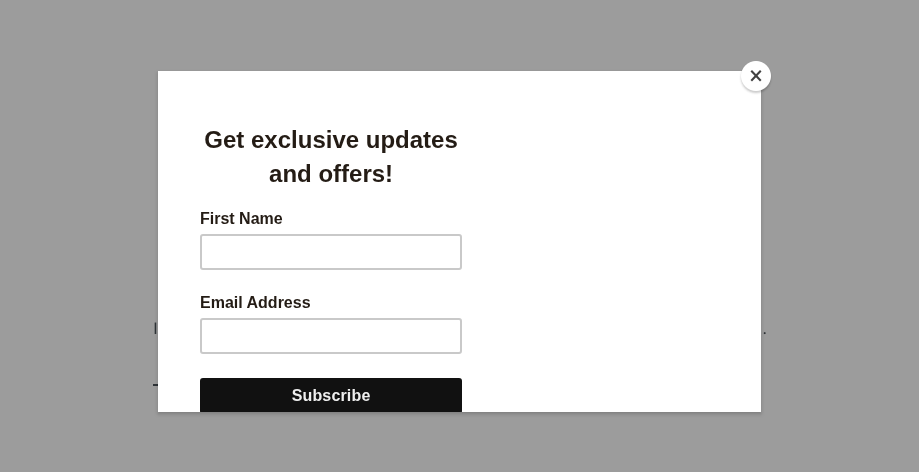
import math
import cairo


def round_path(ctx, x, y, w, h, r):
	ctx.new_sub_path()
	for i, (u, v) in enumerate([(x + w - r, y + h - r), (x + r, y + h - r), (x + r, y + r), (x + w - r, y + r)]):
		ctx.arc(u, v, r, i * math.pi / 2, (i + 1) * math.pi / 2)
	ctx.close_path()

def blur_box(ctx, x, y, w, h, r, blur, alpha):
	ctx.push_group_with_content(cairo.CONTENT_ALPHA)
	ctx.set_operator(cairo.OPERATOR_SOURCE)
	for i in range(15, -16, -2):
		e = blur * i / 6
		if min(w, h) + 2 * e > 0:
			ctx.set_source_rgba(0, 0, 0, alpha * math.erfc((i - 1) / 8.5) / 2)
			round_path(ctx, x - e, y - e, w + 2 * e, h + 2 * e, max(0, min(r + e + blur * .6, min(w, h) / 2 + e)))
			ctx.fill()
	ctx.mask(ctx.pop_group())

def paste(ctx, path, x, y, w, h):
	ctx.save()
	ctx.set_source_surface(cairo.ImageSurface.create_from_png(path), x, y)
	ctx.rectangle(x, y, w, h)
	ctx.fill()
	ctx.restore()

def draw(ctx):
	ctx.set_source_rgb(0.612, 0.612, 0.612)
	ctx.paint()
	ctx.set_source_rgb(0.176, 0.196, 0.212)
	ctx.rectangle(153, 384, 5, 2)
	ctx.fill()
	ctx.set_source_rgb(0, 0, 0)
	blur_box(ctx, 158, 73, 603, 341, 0, 2, 0.2)
	paste(ctx, 'media/1.png', 158, 71, 603, 341)
	blur_box(ctx, 741, 63, 30, 30, 15, 1, 0.2)
	ctx.set_source_rgb(1, 1, 1)
	ctx.arc(756, 76, 15, 0, 2 * math.pi)
	ctx.fill()
	ctx.set_source_rgb(0.255, 0.255, 0.255)
	ctx.new_path()
	ctx.move_to(760, 70)
	ctx.line_to(761.5, 71.5)
	ctx.line_to(752, 81.5)
	ctx.line_to(750.5, 80)
	ctx.close_path()
	ctx.fill()
	ctx.new_path()
	ctx.move_to(750.5, 71.5)
	ctx.line_to(752, 70)
	ctx.line_to(761.5, 80)
	ctx.line_to(760, 81.5)
	ctx.close_path()
	ctx.fill()
	ctx.select_font_face('Lato')
	ctx.set_font_size(16)
	ctx.set_source_rgb(0.176, 0.196, 0.212)
	ctx.move_to(153, 334)
	ctx.show_text('I')
	ctx.move_to(763, 334)
	ctx.show_text('.')


surface = cairo.ImageSurface(cairo.FORMAT_RGB24, 919, 472)
ctx = cairo.Context(surface)
options = cairo.FontOptions()
options.set_hint_metrics(cairo.HINT_METRICS_OFF)
options.set_hint_style(cairo.HINT_STYLE_NONE)
ctx.set_font_options(options)
ctx.set_miter_limit(4)
draw(ctx)
surface.write_to_png('image.png')
